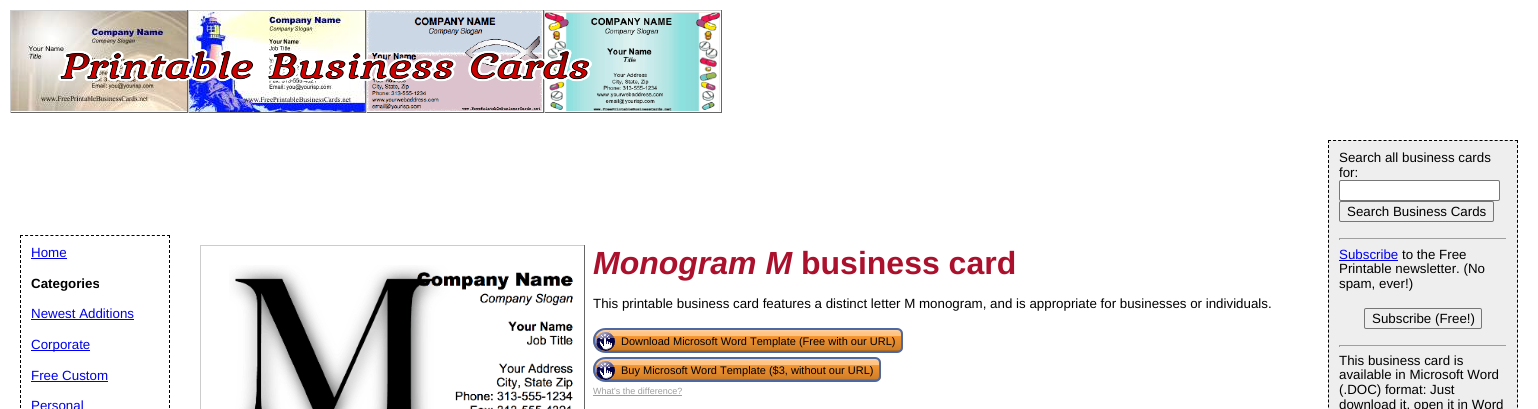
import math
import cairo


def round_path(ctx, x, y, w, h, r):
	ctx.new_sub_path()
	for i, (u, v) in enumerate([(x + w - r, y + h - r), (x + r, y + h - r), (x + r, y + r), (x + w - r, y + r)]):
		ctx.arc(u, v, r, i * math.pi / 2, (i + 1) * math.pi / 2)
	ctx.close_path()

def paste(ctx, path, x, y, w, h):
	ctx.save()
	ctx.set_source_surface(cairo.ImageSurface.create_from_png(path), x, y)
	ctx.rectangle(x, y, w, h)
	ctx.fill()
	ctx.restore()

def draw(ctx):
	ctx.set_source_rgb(1, 1, 1)
	ctx.paint()
	ctx.set_source_rgb(0.8, 0.8, 0.8)
	ctx.rectangle(10, 10, 712, 1)
	ctx.fill()
	ctx.set_source_rgb(0.4, 0.4, 0.4)
	ctx.rectangle(187, 10, 1, 103)
	ctx.rectangle(10, 112, 178, 1)
	ctx.fill()
	ctx.set_source_rgb(0.8, 0.8, 0.8)
	ctx.rectangle(10, 10, 1, 103)
	ctx.fill()
	paste(ctx, 'media/1.png', 11, 11, 176, 101)
	ctx.set_source_rgb(0.4, 0.4, 0.4)
	ctx.rectangle(365, 10, 1, 103)
	ctx.rectangle(188, 112, 178, 1)
	ctx.fill()
	ctx.set_source_rgb(0.8, 0.8, 0.8)
	ctx.rectangle(188, 10, 1, 103)
	ctx.fill()
	paste(ctx, 'media/2.png', 189, 11, 176, 101)
	ctx.set_source_rgb(0.4, 0.4, 0.4)
	ctx.rectangle(543, 10, 1, 103)
	ctx.rectangle(366, 112, 178, 1)
	ctx.fill()
	ctx.set_source_rgb(0.8, 0.8, 0.8)
	ctx.rectangle(366, 10, 1, 103)
	ctx.fill()
	paste(ctx, 'media/3.png', 367, 11, 175, 100)
	ctx.set_source_rgb(0.4, 0.4, 0.4)
	ctx.rectangle(721, 10, 1, 103)
	ctx.rectangle(544, 112, 178, 1)
	ctx.fill()
	ctx.set_source_rgb(0.8, 0.8, 0.8)
	ctx.rectangle(544, 10, 1, 103)
	ctx.fill()
	paste(ctx, 'media/4.png', 545, 12, 175, 99)
	paste(ctx, 'media/5.png', 58, 49, 534, 33)
	ctx.new_path()
	ctx.move_to(20, 235.5)
	ctx.line_to(170, 235.5)
	ctx.set_source_rgb(0, 0, 0)
	ctx.set_line_width(1)
	ctx.set_dash([3, 2.07])
	ctx.stroke()
	ctx.new_path()
	ctx.move_to(169.5, 235)
	ctx.line_to(169.5, 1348)
	ctx.set_dash([3, 2])
	ctx.stroke()
	ctx.new_path()
	ctx.move_to(20.5, 235)
	ctx.line_to(20.5, 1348)
	ctx.stroke()
	ctx.select_font_face('Liberation Sans')
	ctx.set_font_size(13.33)
	ctx.set_source_rgb(0, 0, 0.933)
	ctx.move_to(31, 257)
	ctx.show_text('Home')
	ctx.rectangle(31, 258, 36, 1)
	ctx.fill()
	ctx.select_font_face('Liberation Sans', cairo.FONT_SLANT_NORMAL, cairo.FONT_WEIGHT_BOLD)
	ctx.set_source_rgb(0, 0, 0)
	ctx.move_to(31, 288)
	ctx.show_text('Categories')
	ctx.select_font_face('Liberation Sans')
	ctx.set_source_rgb(0, 0, 0.933)
	ctx.move_to(31, 318)
	ctx.show_text('Newest Additions')
	ctx.rectangle(31, 319, 103, 1)
	ctx.fill()
	ctx.rectangle(31, 350, 59, 1)
	ctx.fill()
	ctx.move_to(31, 349)
	ctx.show_text('Corporate')
	ctx.move_to(31, 380)
	ctx.show_text('Free Custom')
	ctx.rectangle(31, 381, 77, 1)
	ctx.fill()
	ctx.move_to(31, 410)
	ctx.show_text('Personal')
	ctx.set_source_rgb(0.8, 0.8, 0.8)
	ctx.rectangle(200, 245, 385, 1)
	ctx.fill()
	ctx.set_source_rgb(0.4, 0.4, 0.4)
	ctx.rectangle(584, 245, 1, 164)
	ctx.fill()
	ctx.set_source_rgb(0.8, 0.8, 0.8)
	ctx.rectangle(200, 245, 1, 164)
	ctx.fill()
	paste(ctx, 'media/6.png', 229, 265, 344, 144)
	ctx.select_font_face('Liberation Sans', cairo.FONT_SLANT_ITALIC, cairo.FONT_WEIGHT_BOLD)
	ctx.set_font_size(32)
	ctx.set_source_rgb(0.671, 0.063, 0.173)
	ctx.move_to(593, 274)
	ctx.show_text('Monogram M')
	ctx.select_font_face('Liberation Sans', cairo.FONT_SLANT_NORMAL, cairo.FONT_WEIGHT_BOLD)
	ctx.move_to(801, 274)
	ctx.show_text('business card')
	ctx.select_font_face('Liberation Sans')
	ctx.set_font_size(13.33)
	ctx.set_source_rgb(0, 0, 0)
	ctx.move_to(593, 308)
	ctx.show_text('This printable business card features a distinct letter M monogram, and is appropriate for businesses or individuals.')
	ctx.save()
	ctx.new_path()
	ctx.move_to(605.5, 328)
	ctx.line_to(897, 328)
	ctx.curve_to(900.5, 328, 903, 330.5, 903, 334)
	ctx.line_to(903, 347)
	ctx.curve_to(903, 350.5, 900.5, 353, 897, 353)
	ctx.line_to(605.5, 353)
	ctx.curve_to(598.5, 353, 593, 347.5, 593, 340.5)
	ctx.curve_to(593, 333.5, 598.5, 328, 605.5, 328)
	ctx.close_path()
	ctx.clip()
	gradient = cairo.LinearGradient(748, 330, 748, 351)
	gradient.add_color_stop_rgba(0, 1, 0.816, 0.62, 1)
	gradient.add_color_stop_rgba(0.15, 1, 0.765, 0.518, 1)
	gradient.add_color_stop_rgba(0.3, 1, 0.765, 0.518, 1)
	gradient.add_color_stop_rgba(0.31, 0.957, 0.584, 0.188, 1)
	gradient.add_color_stop_rgba(0.94, 0.816, 0.494, 0.161, 1)
	gradient.add_color_stop_rgba(0.95, 0.749, 0.455, 0.145, 1)
	gradient.add_color_stop_rgba(1, 0.643, 0.392, 0.125, 1)
	ctx.set_source(gradient)
	ctx.rectangle(593, 330, 310, 21)
	ctx.fill()
	ctx.restore()
	ctx.new_path()
	ctx.move_to(605.5, 329)
	ctx.line_to(897, 329)
	ctx.curve_to(900, 329, 902, 331, 902, 334)
	ctx.line_to(902, 347)
	ctx.curve_to(902, 350, 900, 352, 897, 352)
	ctx.line_to(605.5, 352)
	ctx.curve_to(599, 352, 594, 347, 594, 340.5)
	ctx.curve_to(594, 334, 599, 329, 605.5, 329)
	ctx.close_path()
	ctx.set_source_rgb(0.298, 0.412, 0.643)
	ctx.set_line_width(2)
	ctx.set_dash([])
	ctx.stroke()
	paste(ctx, 'media/7.png', 596, 331, 19, 20)
	ctx.set_font_size(11)
	ctx.set_source_rgb(0, 0, 0)
	ctx.move_to(621, 345)
	ctx.show_text('Download Microsoft Word Template (Free with our URL)')
	ctx.save()
	ctx.new_path()
	ctx.move_to(605.5, 357)
	ctx.line_to(875, 357)
	ctx.curve_to(878.5, 357, 881, 359.5, 881, 363)
	ctx.line_to(881, 376)
	ctx.curve_to(881, 379.5, 878.5, 382, 875, 382)
	ctx.line_to(605.5, 382)
	ctx.curve_to(598.5, 382, 593, 376.5, 593, 369.5)
	ctx.curve_to(593, 362.5, 598.5, 357, 605.5, 357)
	ctx.close_path()
	ctx.clip()
	gradient = cairo.LinearGradient(737, 359, 737, 380)
	gradient.add_color_stop_rgba(0, 1, 0.816, 0.62, 1)
	gradient.add_color_stop_rgba(0.15, 1, 0.765, 0.518, 1)
	gradient.add_color_stop_rgba(0.3, 1, 0.765, 0.518, 1)
	gradient.add_color_stop_rgba(0.31, 0.957, 0.584, 0.188, 1)
	gradient.add_color_stop_rgba(0.94, 0.816, 0.494, 0.161, 1)
	gradient.add_color_stop_rgba(0.95, 0.749, 0.455, 0.145, 1)
	gradient.add_color_stop_rgba(1, 0.643, 0.392, 0.125, 1)
	ctx.set_source(gradient)
	ctx.rectangle(593, 359, 288, 21)
	ctx.fill()
	ctx.restore()
	ctx.new_path()
	ctx.move_to(605.5, 358)
	ctx.line_to(875, 358)
	ctx.curve_to(878, 358, 880, 360, 880, 363)
	ctx.line_to(880, 376)
	ctx.curve_to(880, 379, 878, 381, 875, 381)
	ctx.line_to(605.5, 381)
	ctx.curve_to(599, 381, 594, 376, 594, 369.5)
	ctx.curve_to(594, 363, 599, 358, 605.5, 358)
	ctx.close_path()
	ctx.set_source_rgb(0.298, 0.412, 0.643)
	ctx.stroke()
	paste(ctx, 'media/7.png', 596, 360, 19, 20)
	ctx.set_source_rgb(0, 0, 0)
	ctx.move_to(621, 374)
	ctx.show_text('Buy Microsoft Word Template ($3, without our URL)')
	ctx.set_font_size(9)
	ctx.set_source_rgb(0.62, 0.62, 0.62)
	ctx.move_to(593, 394)
	ctx.show_text('What\'s the difference?')
	ctx.rectangle(593, 395, 89, 1)
	ctx.fill()
	ctx.set_source_rgb(0.933, 0.933, 0.933)
	ctx.rectangle(1328, 140, 190, 269)
	ctx.fill()
	ctx.new_path()
	ctx.move_to(1328, 140.5)
	ctx.line_to(1518, 140.5)
	ctx.set_source_rgb(0, 0, 0)
	ctx.set_line_width(1)
	ctx.set_dash([3, 2.05])
	ctx.stroke()
	ctx.new_path()
	ctx.move_to(1517.5, 140)
	ctx.line_to(1517.5, 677)
	ctx.set_dash([3, 1.99])
	ctx.stroke()
	ctx.new_path()
	ctx.move_to(1328.5, 140)
	ctx.line_to(1328.5, 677)
	ctx.stroke()
	ctx.set_font_size(13.33)
	ctx.move_to(1339, 162)
	ctx.show_text('Search all business cards')
	ctx.move_to(1339, 177)
	ctx.show_text('for:')
	ctx.set_source_rgb(1, 1, 1)
	round_path(ctx, 1339.5, 180.5, 160, 20, 1.5)
	ctx.fill_preserve()
	ctx.set_source_rgb(0.463, 0.463, 0.463)
	ctx.set_dash([])
	ctx.stroke()
	round_path(ctx, 1339.5, 201.5, 154, 20, 1.5)
	ctx.stroke()
	ctx.set_source_rgb(0, 0, 0)
	ctx.move_to(1347, 216)
	ctx.show_text('Search Business Cards')
	ctx.set_source_rgb(0.624, 0.624, 0.624)
	ctx.rectangle(1339, 238, 168, 1)
	ctx.fill()
	ctx.set_source_rgb(0.933, 0.933, 0.933)
	ctx.rectangle(1506, 238, 1, 2)
	ctx.fill()
	ctx.set_source_rgb(0.624, 0.624, 0.624)
	ctx.rectangle(1339, 238, 1, 2)
	ctx.fill()
	ctx.set_source_rgb(0, 0, 0.933)
	ctx.move_to(1339, 259)
	ctx.show_text('Subscribe')
	ctx.rectangle(1339, 260, 59, 1)
	ctx.fill()
	ctx.set_source_rgb(0, 0, 0)
	for x, y, s in [
		(1402, 259, 'to the Free'),
		(1339, 273, 'Printable newsletter. (No'),
		(1339, 288, 'spam, ever!)'),
	]:
		ctx.move_to(x, y)
		ctx.show_text(s)
	round_path(ctx, 1364.5, 308.5, 117, 20, 1.5)
	ctx.set_source_rgb(0.463, 0.463, 0.463)
	ctx.stroke()
	ctx.set_source_rgb(0, 0, 0)
	ctx.move_to(1372, 323)
	ctx.show_text('Subscribe (Free!)')
	ctx.set_source_rgb(0.624, 0.624, 0.624)
	ctx.rectangle(1339, 345, 168, 1)
	ctx.fill()
	ctx.set_source_rgb(0.933, 0.933, 0.933)
	ctx.rectangle(1506, 345, 1, 2)
	ctx.fill()
	ctx.set_source_rgb(0.624, 0.624, 0.624)
	ctx.rectangle(1339, 345, 1, 2)
	ctx.fill()
	ctx.set_source_rgb(0, 0, 0)
	for x, y, s in [
		(1339, 365, 'This business card is'),
		(1339, 379, 'available in Microsoft Word'),
		(1339, 394, '(.DOC) format: Just'),
		(1339, 409, 'download it, open it in Word'),
	]:
		ctx.move_to(x, y)
		ctx.show_text(s)


surface = cairo.ImageSurface(cairo.FORMAT_RGB24, 1538, 409)
ctx = cairo.Context(surface)
options = cairo.FontOptions()
options.set_hint_metrics(cairo.HINT_METRICS_OFF)
options.set_hint_style(cairo.HINT_STYLE_NONE)
ctx.set_font_options(options)
ctx.set_miter_limit(4)
draw(ctx)
surface.write_to_png('image.png')
